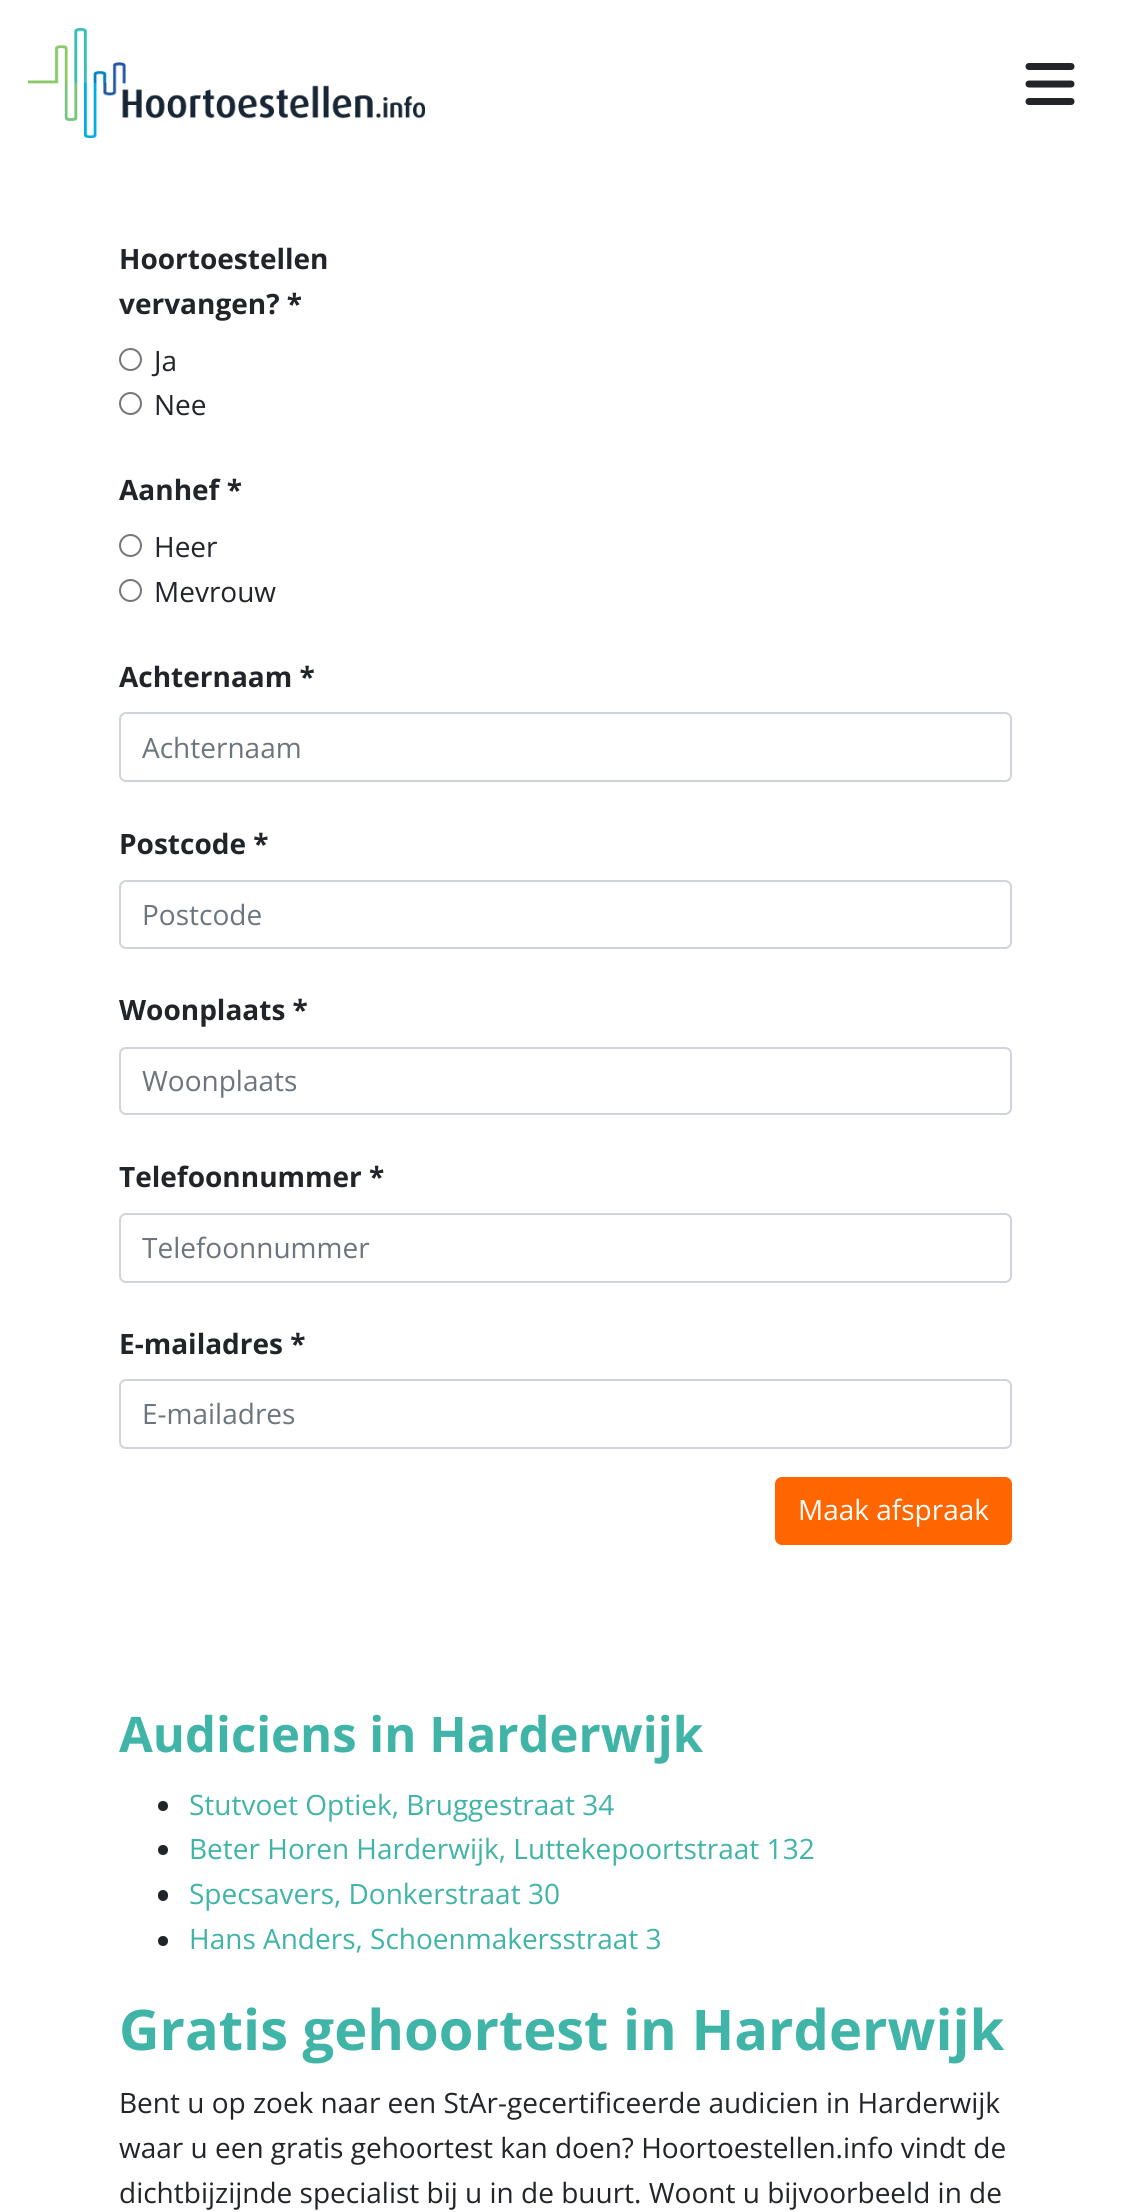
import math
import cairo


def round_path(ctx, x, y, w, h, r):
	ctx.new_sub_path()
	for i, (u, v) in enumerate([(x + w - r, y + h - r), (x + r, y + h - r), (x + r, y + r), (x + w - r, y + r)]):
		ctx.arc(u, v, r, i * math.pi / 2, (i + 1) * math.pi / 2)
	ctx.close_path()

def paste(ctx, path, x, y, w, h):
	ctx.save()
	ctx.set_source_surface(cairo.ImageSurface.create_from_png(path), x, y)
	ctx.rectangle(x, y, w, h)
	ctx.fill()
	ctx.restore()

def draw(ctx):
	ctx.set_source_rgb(1, 1, 1)
	ctx.paint()
	paste(ctx, 'media/1.png', 28, 28, 397, 110)
	paste(ctx, 'media/2.png', 1025, 63, 50, 42)
	ctx.select_font_face('Open Sans', cairo.FONT_SLANT_NORMAL, cairo.FONT_WEIGHT_BOLD)
	ctx.set_font_size(28)
	ctx.set_source_rgb(0.129, 0.145, 0.161)
	ctx.move_to(119, 269)
	ctx.show_text('Hoortoestellen')
	ctx.move_to(119, 314)
	ctx.show_text('vervangen? *')
	ctx.new_path()
	ctx.arc(130.5, 359.5, 10.5, 0, 2 * math.pi)
	ctx.set_source_rgb(0.463, 0.463, 0.463)
	ctx.stroke()
	ctx.select_font_face('Open Sans')
	ctx.set_source_rgb(0.129, 0.145, 0.161)
	ctx.move_to(154, 371)
	ctx.show_text('Ja')
	ctx.new_path()
	ctx.arc(130.5, 403.5, 10.5, 0, 2 * math.pi)
	ctx.set_source_rgb(0.463, 0.463, 0.463)
	ctx.stroke()
	ctx.set_source_rgb(0.129, 0.145, 0.161)
	ctx.move_to(154, 415)
	ctx.show_text('Nee')
	ctx.select_font_face('Open Sans', cairo.FONT_SLANT_NORMAL, cairo.FONT_WEIGHT_BOLD)
	ctx.move_to(119, 500)
	ctx.show_text('Aanhef *')
	ctx.new_path()
	ctx.arc(130.5, 545.5, 10.5, 0, 2 * math.pi)
	ctx.set_source_rgb(0.463, 0.463, 0.463)
	ctx.stroke()
	ctx.select_font_face('Open Sans')
	ctx.set_source_rgb(0.129, 0.145, 0.161)
	ctx.move_to(154, 557)
	ctx.show_text('Heer')
	ctx.new_path()
	ctx.arc(130.5, 590.5, 10.5, 0, 2 * math.pi)
	ctx.set_source_rgb(0.463, 0.463, 0.463)
	ctx.stroke()
	ctx.set_source_rgb(0.129, 0.145, 0.161)
	ctx.move_to(154, 602)
	ctx.show_text('Mevrouw')
	ctx.select_font_face('Open Sans', cairo.FONT_SLANT_NORMAL, cairo.FONT_WEIGHT_BOLD)
	ctx.move_to(119, 687)
	ctx.show_text('Achternaam *')
	round_path(ctx, 120, 713, 891, 68, 6)
	ctx.set_source_rgb(0.808, 0.831, 0.855)
	ctx.stroke()
	ctx.select_font_face('Open Sans')
	ctx.set_source_rgb(0.424, 0.459, 0.49)
	ctx.move_to(142, 758)
	ctx.show_text('Achternaam')
	ctx.select_font_face('Open Sans', cairo.FONT_SLANT_NORMAL, cairo.FONT_WEIGHT_BOLD)
	ctx.set_source_rgb(0.129, 0.145, 0.161)
	ctx.move_to(119, 854)
	ctx.show_text('Postcode *')
	round_path(ctx, 120, 881, 891, 67, 6)
	ctx.set_source_rgb(0.808, 0.831, 0.855)
	ctx.stroke()
	ctx.select_font_face('Open Sans')
	ctx.set_source_rgb(0.424, 0.459, 0.49)
	ctx.move_to(142, 925)
	ctx.show_text('Postcode')
	ctx.select_font_face('Open Sans', cairo.FONT_SLANT_NORMAL, cairo.FONT_WEIGHT_BOLD)
	ctx.set_source_rgb(0.129, 0.145, 0.161)
	ctx.move_to(119, 1020)
	ctx.show_text('Woonplaats *')
	round_path(ctx, 120, 1048, 891, 66, 6)
	ctx.set_source_rgb(0.808, 0.831, 0.855)
	ctx.stroke()
	ctx.select_font_face('Open Sans')
	ctx.set_source_rgb(0.424, 0.459, 0.49)
	ctx.move_to(142, 1091)
	ctx.show_text('Woonplaats')
	ctx.select_font_face('Open Sans', cairo.FONT_SLANT_NORMAL, cairo.FONT_WEIGHT_BOLD)
	ctx.set_source_rgb(0.129, 0.145, 0.161)
	ctx.move_to(119, 1187)
	ctx.show_text('Telefoonnummer *')
	round_path(ctx, 120, 1214, 891, 68, 6)
	ctx.set_source_rgb(0.808, 0.831, 0.855)
	ctx.stroke()
	ctx.select_font_face('Open Sans')
	ctx.set_source_rgb(0.424, 0.459, 0.49)
	ctx.move_to(142, 1258)
	ctx.show_text('Telefoonnummer')
	ctx.select_font_face('Open Sans', cairo.FONT_SLANT_NORMAL, cairo.FONT_WEIGHT_BOLD)
	ctx.set_source_rgb(0.129, 0.145, 0.161)
	ctx.move_to(119, 1354)
	ctx.show_text('E-mailadres *')
	round_path(ctx, 120, 1380, 891, 68, 6)
	ctx.set_source_rgb(0.808, 0.831, 0.855)
	ctx.stroke()
	ctx.select_font_face('Open Sans')
	ctx.set_source_rgb(0.424, 0.459, 0.49)
	ctx.move_to(142, 1424)
	ctx.show_text('E-mailadres')
	ctx.set_source_rgb(1, 0.4, 0)
	round_path(ctx, 776, 1478, 235, 66, 6)
	ctx.fill_preserve()
	ctx.stroke()
	ctx.set_source_rgb(1, 1, 1)
	ctx.move_to(798, 1520)
	ctx.show_text('Maak afspraak')
	ctx.select_font_face('Open Sans', cairo.FONT_SLANT_NORMAL, cairo.FONT_WEIGHT_BOLD)
	ctx.set_font_size(49)
	ctx.set_source_rgb(0.251, 0.706, 0.655)
	ctx.move_to(119, 1752)
	ctx.show_text('Audiciens in Harderwijk')
	ctx.set_source_rgb(0.129, 0.145, 0.161)
	ctx.new_path()
	ctx.arc(163, 1806, 5, 0, 2 * math.pi)
	ctx.fill()
	ctx.select_font_face('Open Sans')
	ctx.set_font_size(28)
	ctx.set_source_rgb(0.251, 0.706, 0.655)
	ctx.move_to(189, 1815)
	ctx.show_text('Stutvoet Optiek, Bruggestraat 34')
	ctx.set_source_rgb(0.129, 0.145, 0.161)
	ctx.new_path()
	ctx.arc(163, 1850, 5, 0, 2 * math.pi)
	ctx.fill()
	ctx.set_source_rgb(0.251, 0.706, 0.655)
	ctx.move_to(189, 1859)
	ctx.show_text('Beter Horen Harderwijk, Luttekepoortstraat 132')
	ctx.set_source_rgb(0.129, 0.145, 0.161)
	round_path(ctx, 158, 1890, 10, 11, 5)
	ctx.fill()
	ctx.set_source_rgb(0.251, 0.706, 0.655)
	ctx.move_to(189, 1904)
	ctx.show_text('Specsavers, Donkerstraat 30')
	ctx.set_source_rgb(0.129, 0.145, 0.161)
	ctx.new_path()
	ctx.arc(163, 1941, 5, 0, 2 * math.pi)
	ctx.fill()
	ctx.set_source_rgb(0.251, 0.706, 0.655)
	ctx.move_to(189, 1949)
	ctx.show_text('Hans Anders, Schoenmakersstraat 3')
	ctx.select_font_face('Open Sans', cairo.FONT_SLANT_NORMAL, cairo.FONT_WEIGHT_BOLD)
	ctx.set_font_size(56)
	ctx.move_to(119, 2050)
	ctx.show_text('Gratis gehoortest in Harderwijk')
	ctx.select_font_face('Open Sans')
	ctx.set_font_size(28)
	ctx.set_source_rgb(0.129, 0.145, 0.161)
	for x, y, s in [
		(119, 2113, 'Bent u op zoek naar een StAr-gecertificeerde audicien in Harderwijk'),
		(119, 2158, 'waar u een gratis gehoortest kan doen? Hoortoestellen.info vindt de'),
		(119, 2203, 'dichtbijzijnde specialist bij u in de buurt. Woont u bijvoorbeeld in de'),
	]:
		ctx.move_to(x, y)
		ctx.show_text(s)


surface = cairo.ImageSurface(cairo.FORMAT_RGB24, 1130, 2212)
ctx = cairo.Context(surface)
options = cairo.FontOptions()
options.set_hint_metrics(cairo.HINT_METRICS_OFF)
options.set_hint_style(cairo.HINT_STYLE_NONE)
ctx.set_font_options(options)
ctx.set_miter_limit(4)
draw(ctx)
surface.write_to_png('image.png')
